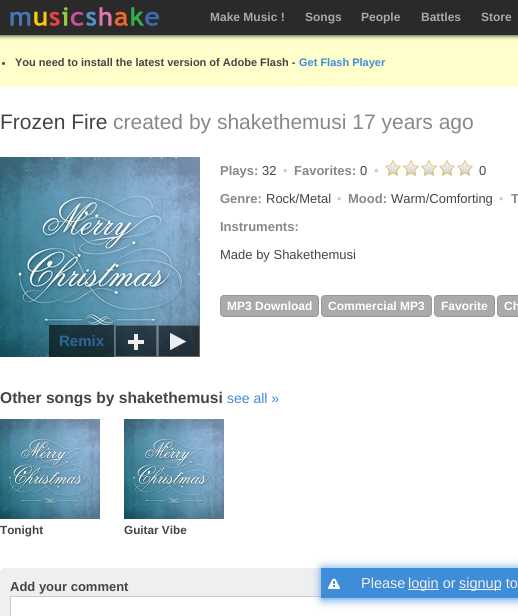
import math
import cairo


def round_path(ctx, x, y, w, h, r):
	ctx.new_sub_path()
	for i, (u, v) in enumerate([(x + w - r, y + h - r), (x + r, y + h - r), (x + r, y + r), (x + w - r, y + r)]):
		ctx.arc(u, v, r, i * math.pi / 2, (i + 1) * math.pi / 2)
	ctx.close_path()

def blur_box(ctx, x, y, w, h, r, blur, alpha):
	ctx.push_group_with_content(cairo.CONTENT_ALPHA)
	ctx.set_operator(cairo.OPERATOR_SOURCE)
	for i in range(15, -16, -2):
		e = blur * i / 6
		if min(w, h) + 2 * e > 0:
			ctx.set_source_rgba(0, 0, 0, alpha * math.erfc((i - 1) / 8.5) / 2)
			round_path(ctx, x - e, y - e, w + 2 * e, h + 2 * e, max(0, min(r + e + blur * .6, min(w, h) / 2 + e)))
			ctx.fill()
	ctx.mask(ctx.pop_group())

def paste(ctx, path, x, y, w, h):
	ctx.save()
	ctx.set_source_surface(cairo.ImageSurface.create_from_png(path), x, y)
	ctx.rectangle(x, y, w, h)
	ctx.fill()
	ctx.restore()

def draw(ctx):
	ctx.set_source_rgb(1, 1, 1)
	ctx.paint()
	ctx.set_source_rgb(1, 1, 0.8)
	ctx.rectangle(0, 35, 518, 52)
	ctx.fill()
	ctx.set_source_rgb(0, 0, 0)
	blur_box(ctx, 0, 0, 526, 35, 0, 2.5, 1)
	ctx.set_source_rgb(0.165, 0.165, 0.165)
	ctx.rectangle(0, 0, 518, 35)
	ctx.fill()
	paste(ctx, 'media/1.png', 10, 7, 149, 19)
	ctx.select_font_face('Liberation Sans', cairo.FONT_SLANT_NORMAL, cairo.FONT_WEIGHT_BOLD)
	ctx.set_font_size(12)
	ctx.set_source_rgb(0.663, 0.663, 0.663)
	for x, y, s in [
		(210, 21, 'Make Music !'),
		(305, 21, 'Songs'),
		(361, 21, 'People'),
		(421, 21, 'Battles'),
		(481, 21, 'Store'),
	]:
		ctx.move_to(x, y)
		ctx.show_text(s)
	ctx.set_source_rgb(0.267, 0.267, 0.267)
	ctx.new_path()
	ctx.arc(3.5, 63.5, 1.5, 0, 2 * math.pi)
	ctx.fill()
	ctx.set_font_size(11)
	ctx.move_to(15, 66)
	ctx.show_text('You need to install the latest version of Adobe Flash -')
	ctx.set_source_rgb(0.247, 0.549, 0.851)
	ctx.move_to(299, 66)
	ctx.show_text('Get Flash Player')
	ctx.select_font_face('Liberation Sans')
	ctx.set_font_size(21)
	ctx.set_source_rgb(0.267, 0.267, 0.267)
	ctx.move_to(0, 129)
	ctx.show_text('Frozen Fire')
	ctx.set_source_rgb(0.533, 0.533, 0.533)
	ctx.move_to(113, 129)
	ctx.show_text('created by shakethemusi 17 years ago')
	ctx.select_font_face('Liberation Sans', cairo.FONT_SLANT_NORMAL, cairo.FONT_WEIGHT_BOLD)
	ctx.set_font_size(13)
	ctx.move_to(220, 175)
	ctx.show_text('Plays:')
	ctx.select_font_face('Liberation Sans')
	ctx.set_source_rgb(0.267, 0.267, 0.267)
	ctx.move_to(262, 175)
	ctx.show_text('32')
	ctx.set_source_rgb(0.8, 0.8, 0.8)
	ctx.move_to(283, 175)
	ctx.show_text('•')
	ctx.select_font_face('Liberation Sans', cairo.FONT_SLANT_NORMAL, cairo.FONT_WEIGHT_BOLD)
	ctx.set_source_rgb(0.533, 0.533, 0.533)
	ctx.move_to(294, 175)
	ctx.show_text('Favorites:')
	ctx.select_font_face('Liberation Sans')
	ctx.set_source_rgb(0.267, 0.267, 0.267)
	ctx.move_to(360, 175)
	ctx.show_text('0')
	ctx.set_source_rgb(0.8, 0.8, 0.8)
	ctx.move_to(374, 175)
	ctx.show_text('•')
	paste(ctx, 'media/2.png', 385, 160, 16, 16)
	paste(ctx, 'media/2.png', 403, 160, 16, 16)
	paste(ctx, 'media/2.png', 421, 160, 16, 16)
	paste(ctx, 'media/2.png', 439, 160, 16, 16)
	paste(ctx, 'media/2.png', 457, 160, 16, 16)
	ctx.set_source_rgb(0.267, 0.267, 0.267)
	ctx.move_to(479, 175)
	ctx.show_text('0')
	ctx.select_font_face('Liberation Sans', cairo.FONT_SLANT_NORMAL, cairo.FONT_WEIGHT_BOLD)
	ctx.set_source_rgb(0.533, 0.533, 0.533)
	ctx.move_to(220, 203)
	ctx.show_text('Genre:')
	ctx.select_font_face('Liberation Sans')
	ctx.set_source_rgb(0.267, 0.267, 0.267)
	ctx.move_to(266, 203)
	ctx.show_text('Rock/Metal')
	ctx.set_source_rgb(0.8, 0.8, 0.8)
	ctx.move_to(337, 203)
	ctx.show_text('•')
	ctx.select_font_face('Liberation Sans', cairo.FONT_SLANT_NORMAL, cairo.FONT_WEIGHT_BOLD)
	ctx.set_source_rgb(0.533, 0.533, 0.533)
	ctx.move_to(348, 203)
	ctx.show_text('Mood:')
	ctx.select_font_face('Liberation Sans')
	ctx.set_source_rgb(0.267, 0.267, 0.267)
	ctx.move_to(391, 203)
	ctx.show_text('Warm/Comforting')
	ctx.set_source_rgb(0.8, 0.8, 0.8)
	ctx.move_to(499, 203)
	ctx.show_text('•')
	ctx.select_font_face('Liberation Sans', cairo.FONT_SLANT_NORMAL, cairo.FONT_WEIGHT_BOLD)
	ctx.set_source_rgb(0.533, 0.533, 0.533)
	ctx.move_to(511, 203)
	ctx.show_text('T')
	ctx.move_to(220, 231)
	ctx.show_text('Instruments:')
	ctx.select_font_face('Liberation Sans')
	ctx.set_source_rgb(0.267, 0.267, 0.267)
	ctx.move_to(220, 259)
	ctx.show_text('Made by Shakethemusi')
	ctx.set_source_rgb(0.667, 0.667, 0.667)
	round_path(ctx, 220.5, 295.5, 98, 21, 3.5)
	ctx.fill_preserve()
	ctx.set_source_rgb(0.6, 0.6, 0.6)
	ctx.set_line_width(1)
	ctx.stroke()
	ctx.select_font_face('Liberation Sans', cairo.FONT_SLANT_NORMAL, cairo.FONT_WEIGHT_BOLD)
	ctx.set_font_size(12)
	ctx.set_source_rgb(1, 1, 1)
	ctx.move_to(227, 310)
	ctx.show_text('MP3 Download')
	ctx.set_source_rgb(0.667, 0.667, 0.667)
	round_path(ctx, 321.5, 295.5, 110, 21, 3.5)
	ctx.fill_preserve()
	ctx.set_source_rgb(0.6, 0.6, 0.6)
	ctx.stroke()
	ctx.set_source_rgb(1, 1, 1)
	ctx.move_to(328, 310)
	ctx.show_text('Commercial MP3')
	ctx.set_source_rgb(0.667, 0.667, 0.667)
	round_path(ctx, 434.5, 295.5, 60, 21, 3.5)
	ctx.fill_preserve()
	ctx.set_source_rgb(0.6, 0.6, 0.6)
	ctx.stroke()
	ctx.set_source_rgb(1, 1, 1)
	ctx.move_to(441, 310)
	ctx.show_text('Favorite')
	ctx.set_source_rgb(0.667, 0.667, 0.667)
	round_path(ctx, 497.5, 295.5, 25, 21, 3.5)
	ctx.fill_preserve()
	ctx.set_source_rgb(0.6, 0.6, 0.6)
	ctx.stroke()
	ctx.set_source_rgb(1, 1, 1)
	ctx.move_to(504, 310)
	ctx.show_text('Ch')
	paste(ctx, 'media/3.png', 0, 157, 200, 200)
	ctx.set_source_rgba(0, 0, 0, 0.6)
	ctx.rectangle(49, 325, 65, 32)
	ctx.fill()
	ctx.set_font_size(15)
	ctx.set_source_rgb(0.188, 0.404, 0.6)
	ctx.move_to(59, 346)
	ctx.show_text('Remix')
	ctx.rectangle(115.5, 325.5, 41, 31)
	ctx.set_source_rgb(0.4, 0.4, 0.4)
	ctx.stroke()
	ctx.set_source_rgba(0, 0, 0, 0.6)
	ctx.rectangle(116, 326, 40, 30)
	ctx.fill()
	paste(ctx, 'media/4.png', 128, 334, 16, 16)
	ctx.rectangle(158.5, 325.5, 41, 31)
	ctx.set_source_rgb(0.4, 0.4, 0.4)
	ctx.stroke()
	ctx.set_source_rgba(0, 0, 0, 0.6)
	ctx.rectangle(159, 326, 40, 30)
	ctx.fill()
	paste(ctx, 'media/5.png', 170, 333, 16, 17)
	ctx.set_font_size(15.6)
	ctx.set_source_rgb(0.267, 0.267, 0.267)
	ctx.move_to(0, 403)
	ctx.show_text('Other songs by shakethemusi')
	ctx.select_font_face('Liberation Sans')
	ctx.set_font_size(14)
	ctx.set_source_rgb(0.247, 0.549, 0.851)
	ctx.move_to(227, 403)
	ctx.show_text('see all »')
	paste(ctx, 'media/6.png', 0, 419, 100, 100)
	ctx.select_font_face('Liberation Sans', cairo.FONT_SLANT_NORMAL, cairo.FONT_WEIGHT_BOLD)
	ctx.set_font_size(11.75)
	ctx.set_source_rgb(0.267, 0.267, 0.267)
	ctx.move_to(0, 534)
	ctx.show_text('Tonight')
	paste(ctx, 'media/6.png', 124, 419, 100, 100)
	ctx.move_to(124, 534)
	ctx.show_text('Guitar Vibe')
	ctx.set_source_rgb(0.937, 0.937, 0.937)
	round_path(ctx, 0, 568, 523, 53, 5)
	ctx.fill()
	ctx.set_font_size(13)
	ctx.set_source_rgb(0.267, 0.267, 0.267)
	ctx.move_to(10, 591)
	ctx.show_text('Add your comment')
	ctx.set_source_rgb(1, 1, 1)
	ctx.rectangle(10.5, 596.5, 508, 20)
	ctx.fill_preserve()
	ctx.set_source_rgb(0.8, 0.8, 0.8)
	ctx.stroke()
	ctx.set_source_rgb(0.247, 0.549, 0.851)
	blur_box(ctx, 322, 569, 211, 30, 0, 5, 1)
	ctx.set_source_rgb(0.247, 0.549, 0.851)
	ctx.rectangle(321, 568, 197, 30)
	ctx.fill()
	paste(ctx, 'media/7.png', 328, 578, 12, 11)
	ctx.select_font_face('Liberation Sans')
	ctx.set_font_size(14.5)
	ctx.set_source_rgb(0.933, 0.933, 0.933)
	ctx.move_to(361, 588)
	ctx.show_text('Please')
	ctx.rectangle(408, 589, 31, 1)
	ctx.fill()
	ctx.move_to(408, 588)
	ctx.show_text('login or')
	ctx.rectangle(459, 589, 42, 1)
	ctx.fill()
	ctx.move_to(459, 588)
	ctx.show_text('signup to')


surface = cairo.ImageSurface(cairo.FORMAT_RGB24, 518, 616)
ctx = cairo.Context(surface)
options = cairo.FontOptions()
options.set_hint_metrics(cairo.HINT_METRICS_OFF)
options.set_hint_style(cairo.HINT_STYLE_NONE)
ctx.set_font_options(options)
ctx.set_miter_limit(4)
draw(ctx)
surface.write_to_png('image.png')
